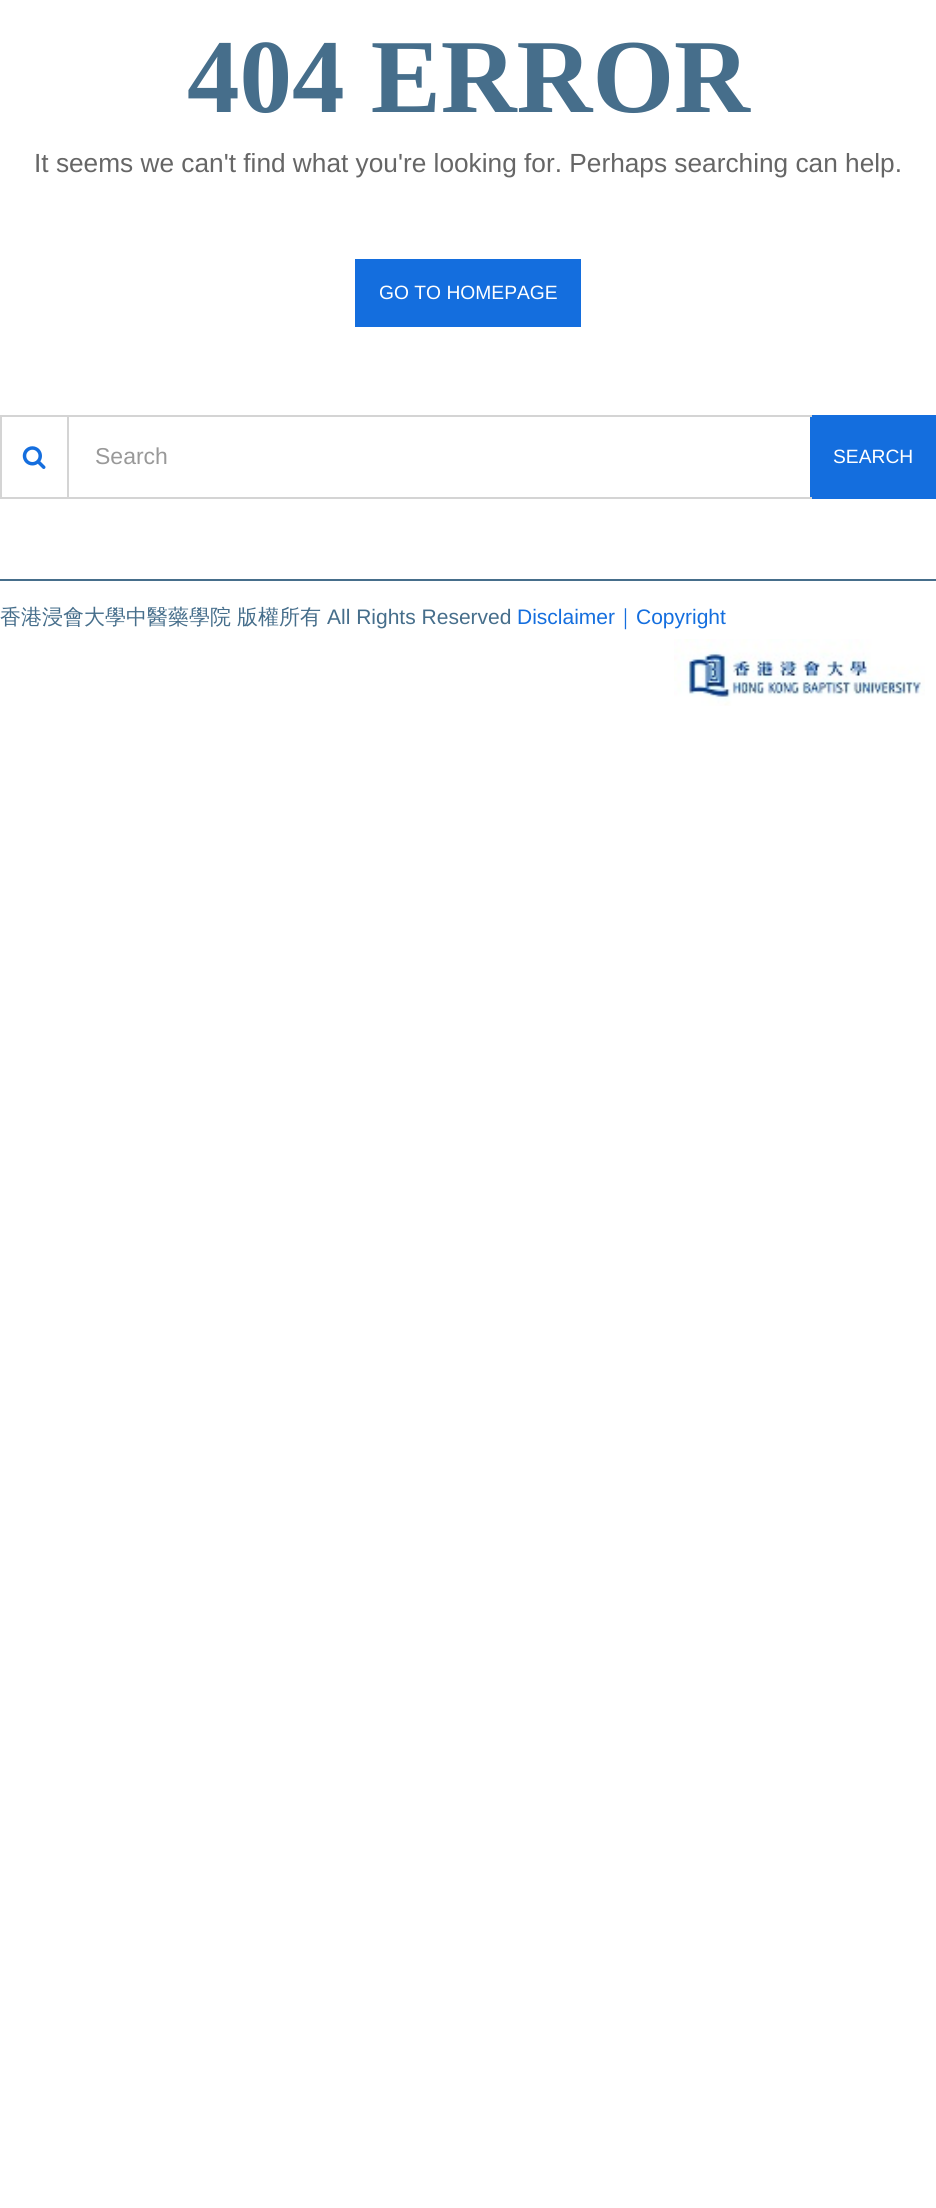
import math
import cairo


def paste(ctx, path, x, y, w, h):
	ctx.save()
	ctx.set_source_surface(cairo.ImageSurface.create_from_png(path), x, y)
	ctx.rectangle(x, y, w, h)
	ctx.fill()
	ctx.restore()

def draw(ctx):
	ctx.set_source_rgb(1, 1, 1)
	ctx.paint()
	ctx.select_font_face('Liberation Serif', cairo.FONT_SLANT_NORMAL, cairo.FONT_WEIGHT_BOLD)
	ctx.set_font_size(105)
	ctx.set_source_rgb(0.275, 0.431, 0.545)
	ctx.move_to(187, 112)
	ctx.show_text('404 ERROR')
	ctx.select_font_face('Liberation Sans')
	ctx.set_font_size(26.25)
	ctx.set_source_rgb(0.4, 0.4, 0.4)
	ctx.move_to(34, 172)
	ctx.show_text('It seems we can\'t find what you\'re looking for. Perhaps searching can help.')
	ctx.set_source_rgb(0.082, 0.431, 0.871)
	ctx.rectangle(355, 259, 226, 68)
	ctx.fill()
	ctx.set_font_size(19.25)
	ctx.set_source_rgb(1, 1, 1)
	ctx.move_to(379, 299)
	ctx.show_text('GO TO HOMEPAGE')
	ctx.set_source_rgb(0.831, 0.831, 0.831)
	ctx.rectangle(0, 415, 67, 2)
	ctx.rectangle(0, 497, 67, 2)
	ctx.rectangle(0, 415, 2, 84)
	ctx.fill()
	paste(ctx, 'media/1.png', 22, 446, 24, 23)
	ctx.set_source_rgb(0.082, 0.431, 0.871)
	ctx.rectangle(810, 415, 126, 84)
	ctx.fill()
	ctx.set_source_rgb(0.831, 0.831, 0.831)
	ctx.rectangle(67, 415, 745, 2)
	ctx.rectangle(67, 497, 745, 2)
	ctx.rectangle(67, 415, 2, 84)
	ctx.fill()
	ctx.set_font_size(23)
	ctx.set_source_rgb(0.6, 0.6, 0.6)
	ctx.move_to(95, 464)
	ctx.show_text('Search')
	ctx.set_font_size(19.25)
	ctx.set_source_rgb(1, 1, 1)
	ctx.move_to(833, 463)
	ctx.show_text('SEARCH')
	ctx.set_source_rgb(0.275, 0.431, 0.545)
	ctx.rectangle(0, 579, 936, 2)
	ctx.fill()
	ctx.select_font_face('WenQuanYi Zen Hei Medium')
	ctx.set_font_size(21)
	ctx.move_to(0, 624)
	ctx.show_text('香港浸會大學中醫藥學院')
	ctx.move_to(237, 624)
	ctx.show_text('版權所有')
	ctx.select_font_face('Liberation Sans')
	ctx.move_to(327, 624)
	ctx.show_text('All Rights Reserved')
	ctx.set_source_rgb(0.082, 0.431, 0.871)
	ctx.move_to(517, 624)
	ctx.show_text('Disclaimer')
	ctx.select_font_face('WenQuanYi Zen Hei Medium')
	ctx.move_to(615, 624)
	ctx.show_text('｜')
	ctx.select_font_face('Liberation Sans')
	ctx.move_to(636, 624)
	ctx.show_text('Copyright')
	paste(ctx, 'media/2.png', 674, 639, 251, 67)


surface = cairo.ImageSurface(cairo.FORMAT_RGB24, 936, 2208)
ctx = cairo.Context(surface)
options = cairo.FontOptions()
options.set_hint_metrics(cairo.HINT_METRICS_OFF)
options.set_hint_style(cairo.HINT_STYLE_NONE)
ctx.set_font_options(options)
ctx.set_miter_limit(4)
draw(ctx)
surface.write_to_png('image.png')
